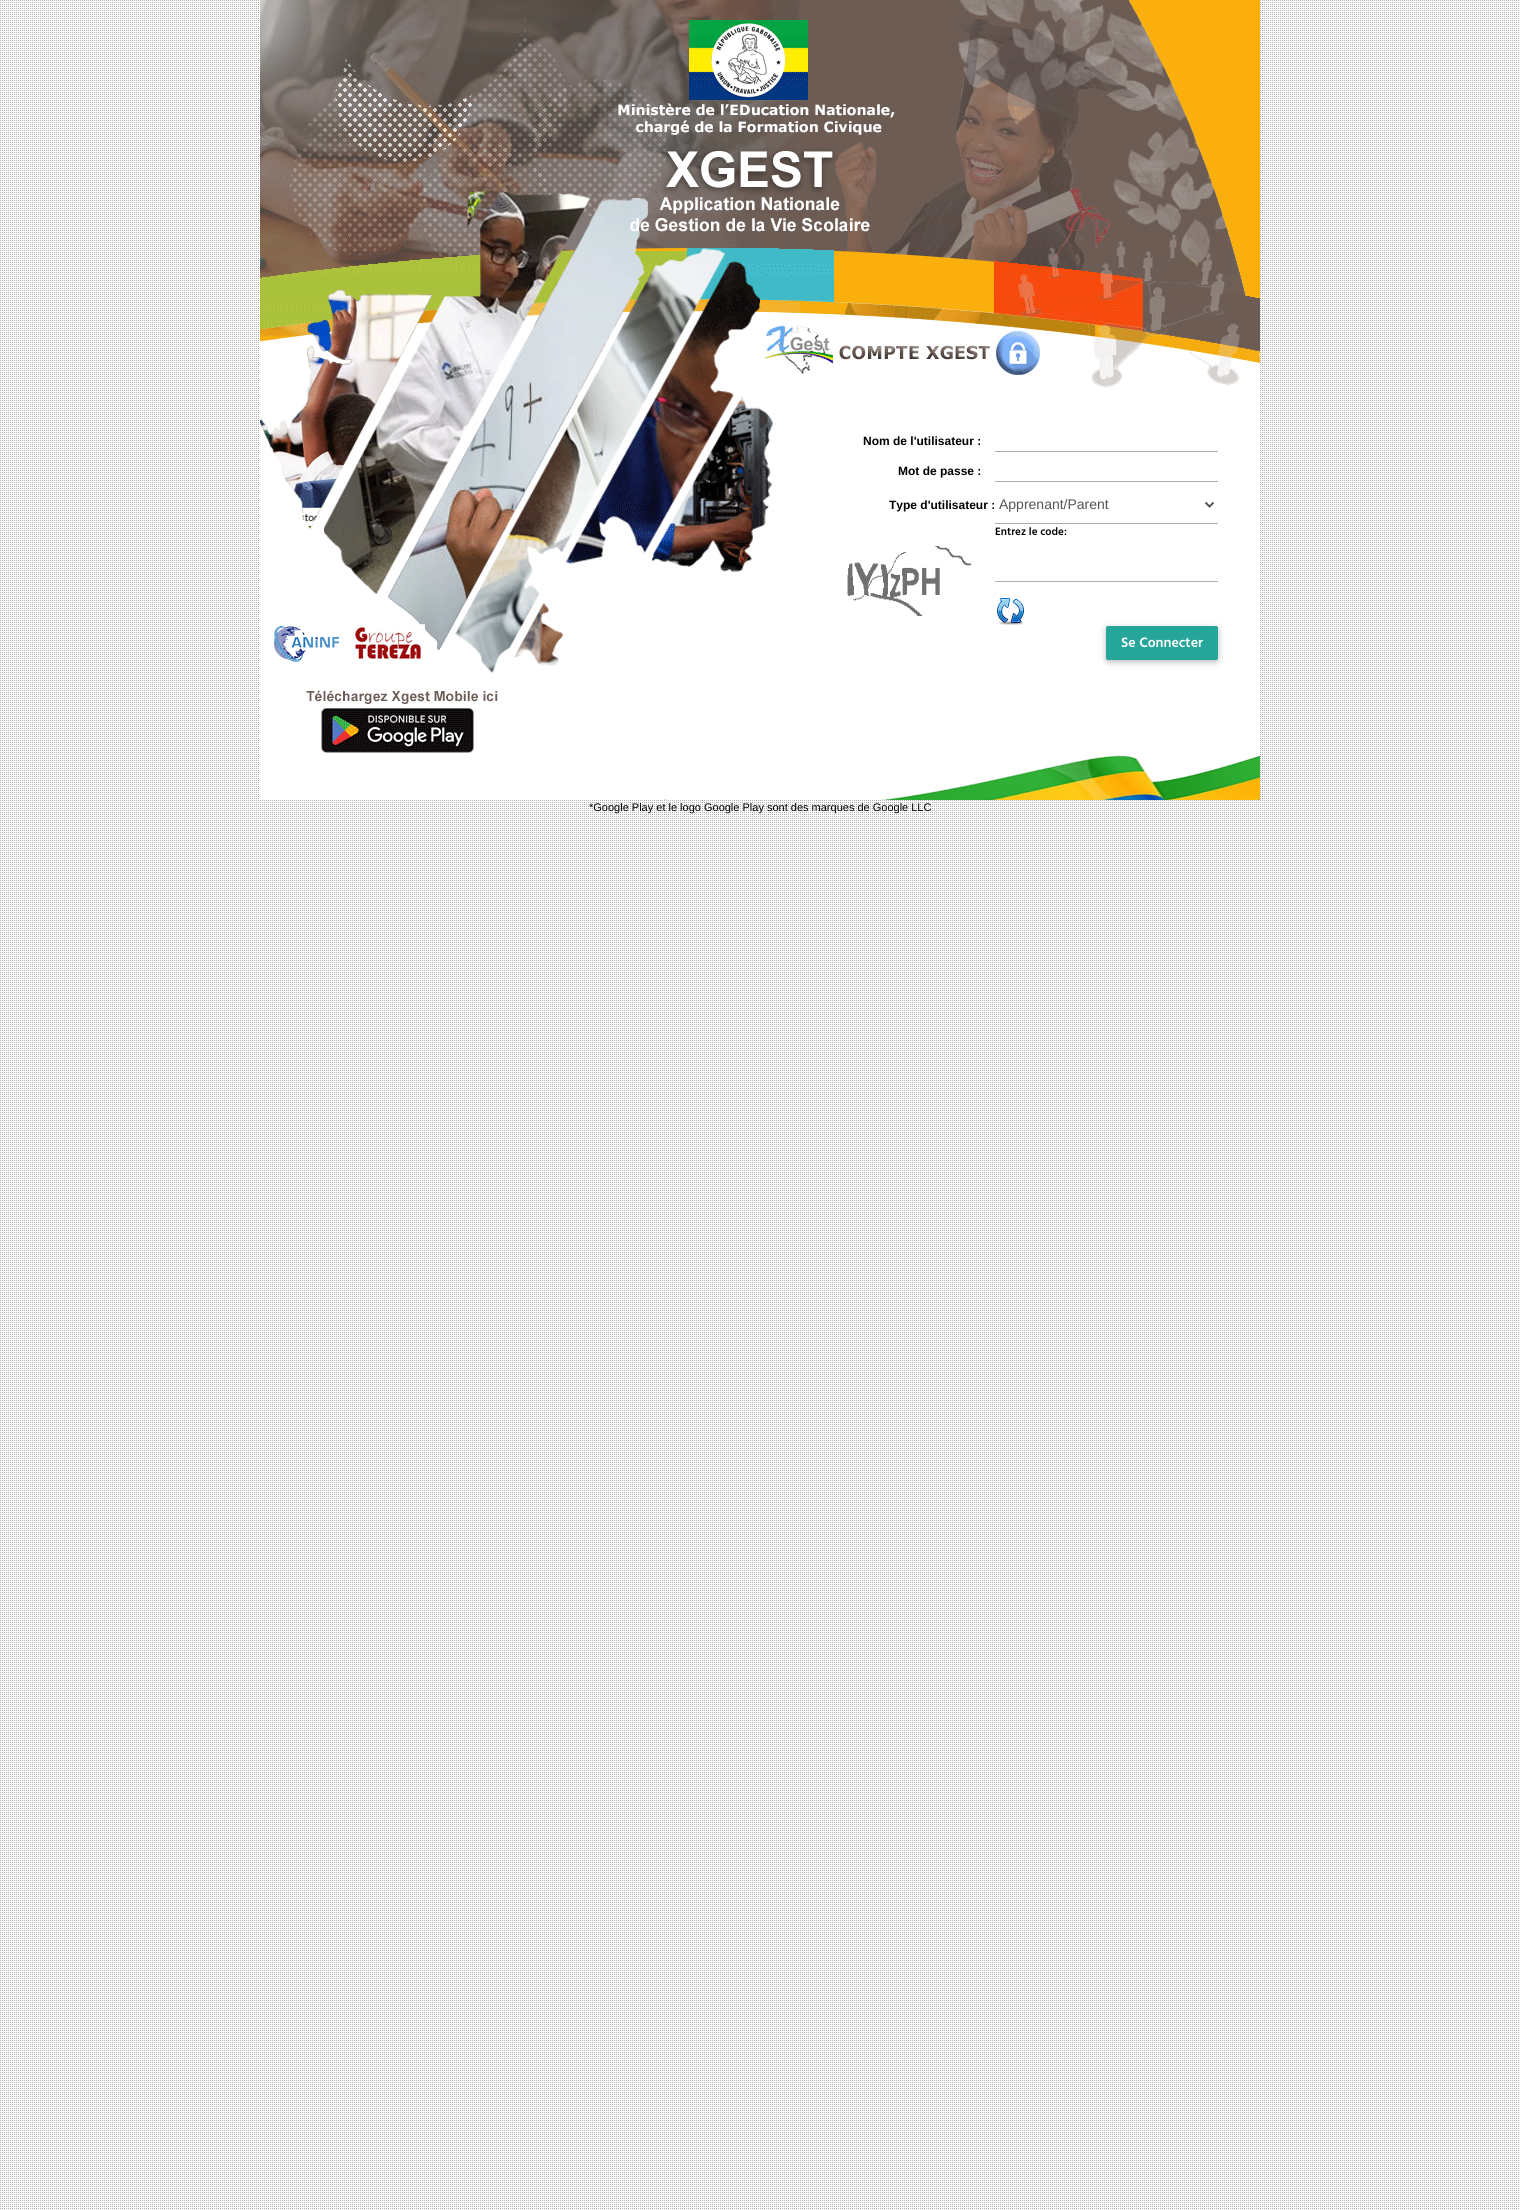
import math
import cairo


def round_path(ctx, x, y, w, h, r):
	ctx.new_sub_path()
	for i, (u, v) in enumerate([(x + w - r, y + h - r), (x + r, y + h - r), (x + r, y + r), (x + w - r, y + r)]):
		ctx.arc(u, v, r, i * math.pi / 2, (i + 1) * math.pi / 2)
	ctx.close_path()

def blur_box(ctx, x, y, w, h, r, blur, alpha):
	ctx.push_group_with_content(cairo.CONTENT_ALPHA)
	ctx.set_operator(cairo.OPERATOR_SOURCE)
	for i in range(15, -16, -2):
		e = blur * i / 6
		if min(w, h) + 2 * e > 0:
			ctx.set_source_rgba(0, 0, 0, alpha * math.erfc((i - 1) / 8.5) / 2)
			round_path(ctx, x - e, y - e, w + 2 * e, h + 2 * e, max(0, min(r + e + blur * .6, min(w, h) / 2 + e)))
			ctx.fill()
	ctx.mask(ctx.pop_group())

def paste(ctx, path, x, y, w, h):
	ctx.save()
	ctx.set_source_surface(cairo.ImageSurface.create_from_png(path), x, y)
	ctx.rectangle(x, y, w, h)
	ctx.fill()
	ctx.restore()

def draw(ctx):
	ctx.set_source_rgb(1, 1, 1)
	ctx.paint()
	paste(ctx, 'media/1.png', 0, 0, 1519, 2209)
	paste(ctx, 'media/2.png', 260, 0, 1000, 20)
	paste(ctx, 'media/3.png', 260, 20, 1000, 15)
	paste(ctx, 'media/4.png', 260, 35, 1000, 18)
	paste(ctx, 'media/5.png', 260, 53, 1000, 7)
	paste(ctx, 'media/6.png', 260, 60, 1000, 12)
	paste(ctx, 'media/7.png', 260, 72, 1000, 14)
	paste(ctx, 'media/8.png', 260, 86, 1000, 14)
	paste(ctx, 'media/9.png', 260, 100, 1000, 19)
	paste(ctx, 'media/10.png', 260, 119, 1000, 13)
	paste(ctx, 'media/11.png', 260, 132, 1000, 19)
	paste(ctx, 'media/12.png', 260, 151, 1000, 19)
	paste(ctx, 'media/13.png', 260, 170, 1000, 17)
	paste(ctx, 'media/14.png', 260, 187, 1000, 11)
	paste(ctx, 'media/15.png', 260, 198, 1000, 16)
	paste(ctx, 'media/16.png', 260, 214, 1000, 17)
	paste(ctx, 'media/17.png', 260, 231, 1000, 17)
	paste(ctx, 'media/18.png', 260, 248, 1000, 14)
	paste(ctx, 'media/19.png', 260, 262, 1000, 14)
	paste(ctx, 'media/20.png', 260, 276, 1000, 24)
	paste(ctx, 'media/21.png', 260, 300, 1000, 11)
	paste(ctx, 'media/22.png', 260, 311, 1000, 9)
	paste(ctx, 'media/23.png', 260, 320, 1000, 16)
	paste(ctx, 'media/24.png', 260, 336, 1000, 10)
	paste(ctx, 'media/25.png', 260, 346, 1000, 13)
	paste(ctx, 'media/26.png', 260, 359, 1000, 22)
	paste(ctx, 'media/27.png', 260, 381, 999, 7)
	paste(ctx, 'media/28.png', 260, 424, 513, 75)
	paste(ctx, 'media/29.png', 260, 388, 513, 36)
	ctx.set_source_rgb(1, 1, 1)
	ctx.rectangle(774, 388, 467, 365)
	ctx.fill()
	ctx.select_font_face('Liberation Sans', cairo.FONT_SLANT_NORMAL, cairo.FONT_WEIGHT_BOLD)
	ctx.set_font_size(12)
	ctx.set_source_rgb(0, 0, 0)
	ctx.move_to(863, 445)
	ctx.show_text('Nom de l\'utilisateur :')
	ctx.set_source_rgb(0.678, 0.678, 0.678)
	ctx.rectangle(995, 451, 223, 1)
	ctx.fill()
	ctx.set_source_rgb(0, 0, 0)
	ctx.move_to(898, 475)
	ctx.show_text('Mot de passe :')
	ctx.set_source_rgb(0.678, 0.678, 0.678)
	ctx.rectangle(995, 481, 223, 1)
	ctx.fill()
	ctx.set_source_rgb(0, 0, 0)
	ctx.move_to(889, 509)
	ctx.show_text('Type d\'utilisateur :')
	ctx.set_source_rgb(0.678, 0.678, 0.678)
	ctx.rectangle(995, 523, 223, 1)
	ctx.fill()
	ctx.new_path()
	ctx.move_to(1205.5, 502.5)
	ctx.line_to(1209.5, 506.5)
	ctx.line_to(1213.5, 502.5)
	ctx.set_source_rgb(0.333, 0.333, 0.333)
	ctx.stroke()
	ctx.select_font_face('Liberation Sans')
	ctx.set_font_size(14)
	ctx.move_to(999, 509)
	ctx.show_text('Apprenant/Parent')
	ctx.select_font_face('Hind Madurai SemiBold')
	ctx.set_font_size(11)
	ctx.set_source_rgb(0, 0, 0)
	ctx.move_to(995, 535)
	ctx.show_text('Entrez le code:')
	ctx.set_source_rgb(0.678, 0.678, 0.678)
	ctx.rectangle(995, 581, 223, 1)
	ctx.fill()
	paste(ctx, 'media/30.png', 997, 598, 28, 27)
	paste(ctx, 'media/31.png', 847, 546, 124, 70)
	ctx.set_source_rgb(0, 0, 0)
	blur_box(ctx, 1106, 628, 112, 34, 2, 5, 0.12)
	blur_box(ctx, 1106, 628, 112, 34, 2, 2.5, 0.16)
	ctx.set_source_rgb(0.149, 0.651, 0.604)
	round_path(ctx, 1106.5, 626.5, 111, 33, 1.5)
	ctx.fill_preserve()
	ctx.set_line_width(1)
	ctx.stroke()
	ctx.set_font_size(14)
	ctx.set_source_rgb(1, 1, 1)
	ctx.move_to(1121, 647)
	ctx.show_text('Se Connecter')
	ctx.rectangle(1242, 388, 17, 365)
	ctx.fill()
	paste(ctx, 'media/32.png', 260, 499, 513, 57)
	paste(ctx, 'media/33.png', 260, 556, 513, 123)
	paste(ctx, 'media/34.png', 260, 680, 513, 73)
	paste(ctx, 'media/35.png', 260, 754, 1000, 21)
	paste(ctx, 'media/36.png', 260, 775, 1000, 25)
	ctx.select_font_face('Liberation Sans')
	ctx.set_font_size(11)
	ctx.set_source_rgb(0, 0, 0)
	ctx.move_to(589, 811)
	ctx.show_text('*Google Play et le logo Google Play sont des marques de Google LLC')


surface = cairo.ImageSurface(cairo.FORMAT_RGB24, 1520, 2210)
ctx = cairo.Context(surface)
options = cairo.FontOptions()
options.set_hint_metrics(cairo.HINT_METRICS_OFF)
options.set_hint_style(cairo.HINT_STYLE_NONE)
ctx.set_font_options(options)
ctx.set_miter_limit(4)
draw(ctx)
surface.write_to_png('image.png')
